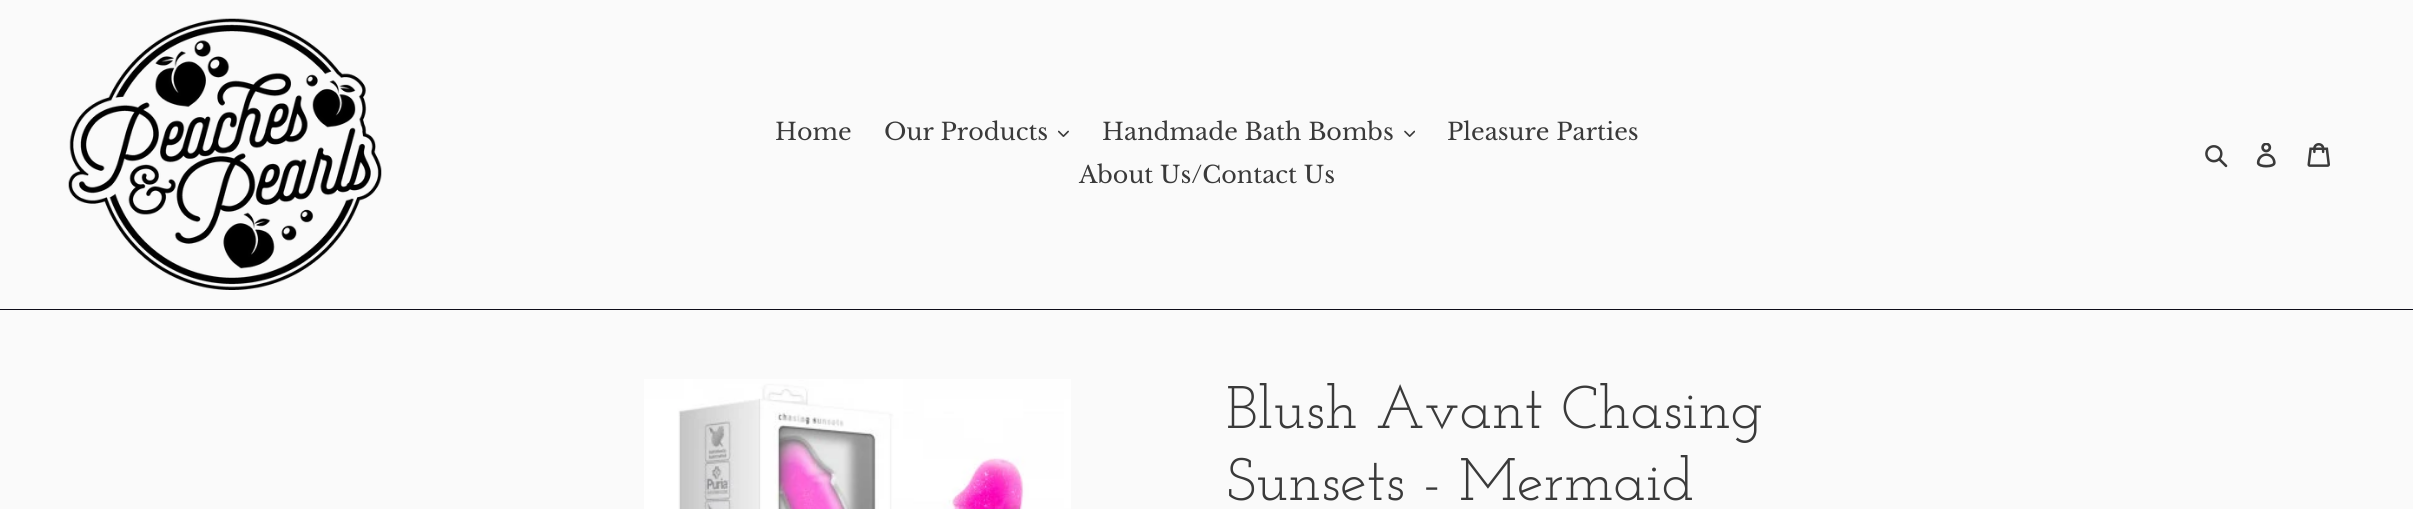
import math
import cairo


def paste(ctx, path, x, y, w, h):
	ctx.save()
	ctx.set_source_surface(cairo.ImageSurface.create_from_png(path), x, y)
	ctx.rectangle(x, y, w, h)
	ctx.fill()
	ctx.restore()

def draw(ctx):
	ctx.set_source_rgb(0.98, 0.98, 0.98)
	ctx.paint()
	ctx.set_source_rgb(0.055, 0.051, 0.098)
	ctx.rectangle(0, 309, 2413, 1)
	ctx.fill()
	paste(ctx, 'media/1.png', 68, 18, 314, 272)
	ctx.select_font_face('Libre Baskerville')
	ctx.set_font_size(23.75)
	ctx.set_source_rgb(0.227, 0.227, 0.227)
	ctx.move_to(775, 140)
	ctx.show_text('Home')
	ctx.move_to(884, 140)
	ctx.show_text('Our Products')
	paste(ctx, 'media/2.png', 1058, 130, 11, 7)
	ctx.move_to(1102, 140)
	ctx.show_text('Handmade Bath Bombs')
	paste(ctx, 'media/3.png', 1404, 130, 11, 7)
	ctx.move_to(1447, 140)
	ctx.show_text('Pleasure Parties')
	ctx.move_to(1079, 183)
	ctx.show_text('About Us/Contact Us')
	paste(ctx, 'media/4.png', 2205, 145, 23, 23)
	paste(ctx, 'media/5.png', 2256, 143, 20, 25)
	paste(ctx, 'media/6.png', 2307, 143, 23, 24)
	paste(ctx, 'media/7.png', 644, 379, 427, 130)
	ctx.select_font_face('Josefin Slab')
	ctx.set_font_size(60)
	ctx.move_to(1226, 428)
	ctx.show_text('Blush Avant Chasing')
	ctx.move_to(1226, 500)
	ctx.show_text('Sunsets - Mermaid')


surface = cairo.ImageSurface(cairo.FORMAT_RGB24, 2413, 509)
ctx = cairo.Context(surface)
options = cairo.FontOptions()
options.set_hint_metrics(cairo.HINT_METRICS_OFF)
options.set_hint_style(cairo.HINT_STYLE_NONE)
ctx.set_font_options(options)
ctx.set_miter_limit(4)
draw(ctx)
surface.write_to_png('image.png')
